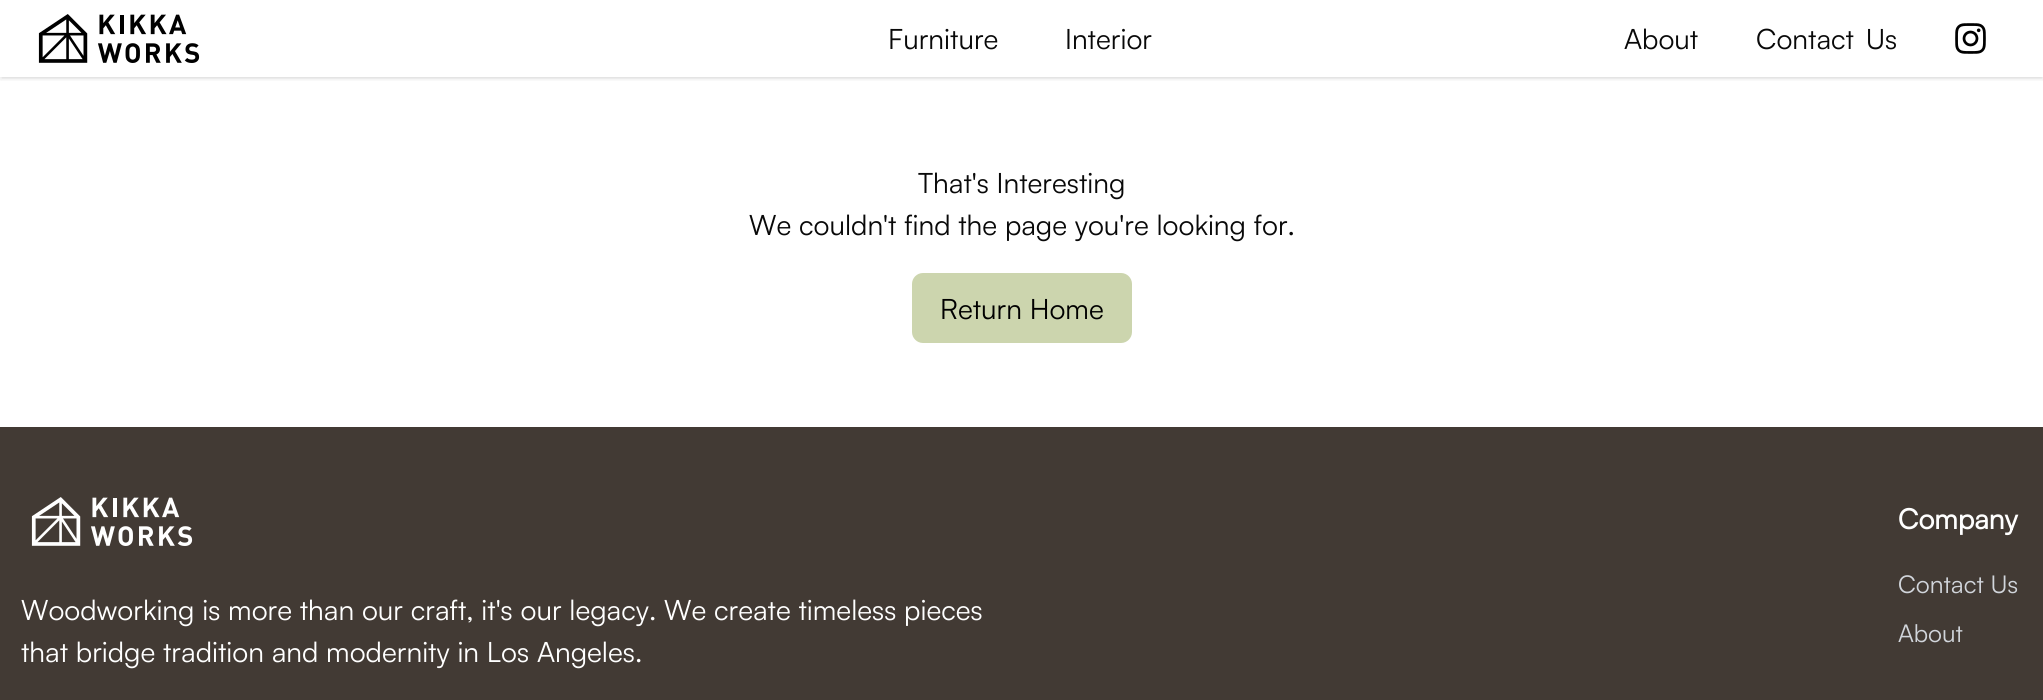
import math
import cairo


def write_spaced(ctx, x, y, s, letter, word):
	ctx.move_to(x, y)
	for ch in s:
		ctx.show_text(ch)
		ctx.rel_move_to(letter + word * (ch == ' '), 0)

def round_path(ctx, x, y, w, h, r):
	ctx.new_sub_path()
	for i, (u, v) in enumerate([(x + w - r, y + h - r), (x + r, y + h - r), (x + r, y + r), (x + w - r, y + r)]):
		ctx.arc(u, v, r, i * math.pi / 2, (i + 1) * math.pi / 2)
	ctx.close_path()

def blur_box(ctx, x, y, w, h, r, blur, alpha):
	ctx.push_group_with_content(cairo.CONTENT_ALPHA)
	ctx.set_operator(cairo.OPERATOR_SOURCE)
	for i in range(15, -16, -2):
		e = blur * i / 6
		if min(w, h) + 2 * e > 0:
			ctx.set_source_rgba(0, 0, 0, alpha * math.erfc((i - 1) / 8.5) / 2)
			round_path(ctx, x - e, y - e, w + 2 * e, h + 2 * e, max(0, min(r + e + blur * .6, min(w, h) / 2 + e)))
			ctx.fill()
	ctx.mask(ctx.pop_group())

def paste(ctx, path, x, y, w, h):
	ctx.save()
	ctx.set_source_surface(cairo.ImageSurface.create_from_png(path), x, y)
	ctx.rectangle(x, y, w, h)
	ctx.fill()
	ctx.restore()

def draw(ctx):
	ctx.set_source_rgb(1, 1, 1)
	ctx.paint()
	ctx.save()
	ctx.rectangle(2, 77, 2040, 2)
	ctx.clip()
	ctx.set_source_rgb(0, 0, 0)
	blur_box(ctx, 2, 4, 2040, 73, 0, 2, 0.1)
	ctx.restore()
	ctx.save()
	ctx.rectangle(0, 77, 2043, 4)
	ctx.clip()
	ctx.set_source_rgb(0, 0, 0)
	blur_box(ctx, 0, 2, 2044, 77, 0, 2.5, 0.1)
	ctx.restore()
	paste(ctx, 'media/1.png', 38, 14, 162, 49)
	ctx.select_font_face('Satoshi')
	ctx.set_font_size(28)
	ctx.set_source_rgb(0.039, 0.039, 0.039)
	for x, y, s in [
		(888, 49, 'Furniture'),
		(1065, 49, 'Interior'),
		(1624, 49, 'About'),
	]:
		ctx.move_to(x, y)
		ctx.show_text(s)
	write_spaced(ctx, 1756, 49, 'Contact Us', 0, 4)
	paste(ctx, 'media/2.png', 1955, 23, 31, 31)
	ctx.move_to(918, 193)
	ctx.show_text('That\'s Interesting')
	ctx.move_to(749, 235)
	ctx.show_text('We couldn\'t find the page you\'re looking for.')
	ctx.set_source_rgb(0.8, 0.835, 0.682)
	round_path(ctx, 912, 273, 220, 70, 11)
	ctx.fill()
	ctx.set_source_rgb(0, 0, 0)
	ctx.move_to(940, 319)
	ctx.show_text('Return Home')
	ctx.set_source_rgb(0.259, 0.227, 0.204)
	ctx.rectangle(0, 427, 2043, 273)
	ctx.fill()
	paste(ctx, 'media/3.png', 31, 497, 162, 49)
	ctx.set_source_rgb(1, 1, 1)
	ctx.move_to(21, 620)
	ctx.show_text('Woodworking is more than our craft, it\'s our legacy. We create timeless pieces')
	ctx.move_to(21, 662)
	ctx.show_text('that bridge tradition and modernity in Los Angeles.')
	ctx.select_font_face('Satoshi', cairo.FONT_SLANT_NORMAL, cairo.FONT_WEIGHT_BOLD)
	ctx.move_to(1898, 529)
	ctx.show_text('Company')
	ctx.select_font_face('Satoshi')
	ctx.set_font_size(24.5)
	ctx.set_source_rgb(0.82, 0.835, 0.859)
	ctx.move_to(1898, 593)
	ctx.show_text('Contact Us')
	ctx.move_to(1898, 642)
	ctx.show_text('About')


surface = cairo.ImageSurface(cairo.FORMAT_RGB24, 2043, 700)
ctx = cairo.Context(surface)
options = cairo.FontOptions()
options.set_hint_metrics(cairo.HINT_METRICS_OFF)
options.set_hint_style(cairo.HINT_STYLE_NONE)
ctx.set_font_options(options)
ctx.set_miter_limit(4)
draw(ctx)
surface.write_to_png('image.png')
